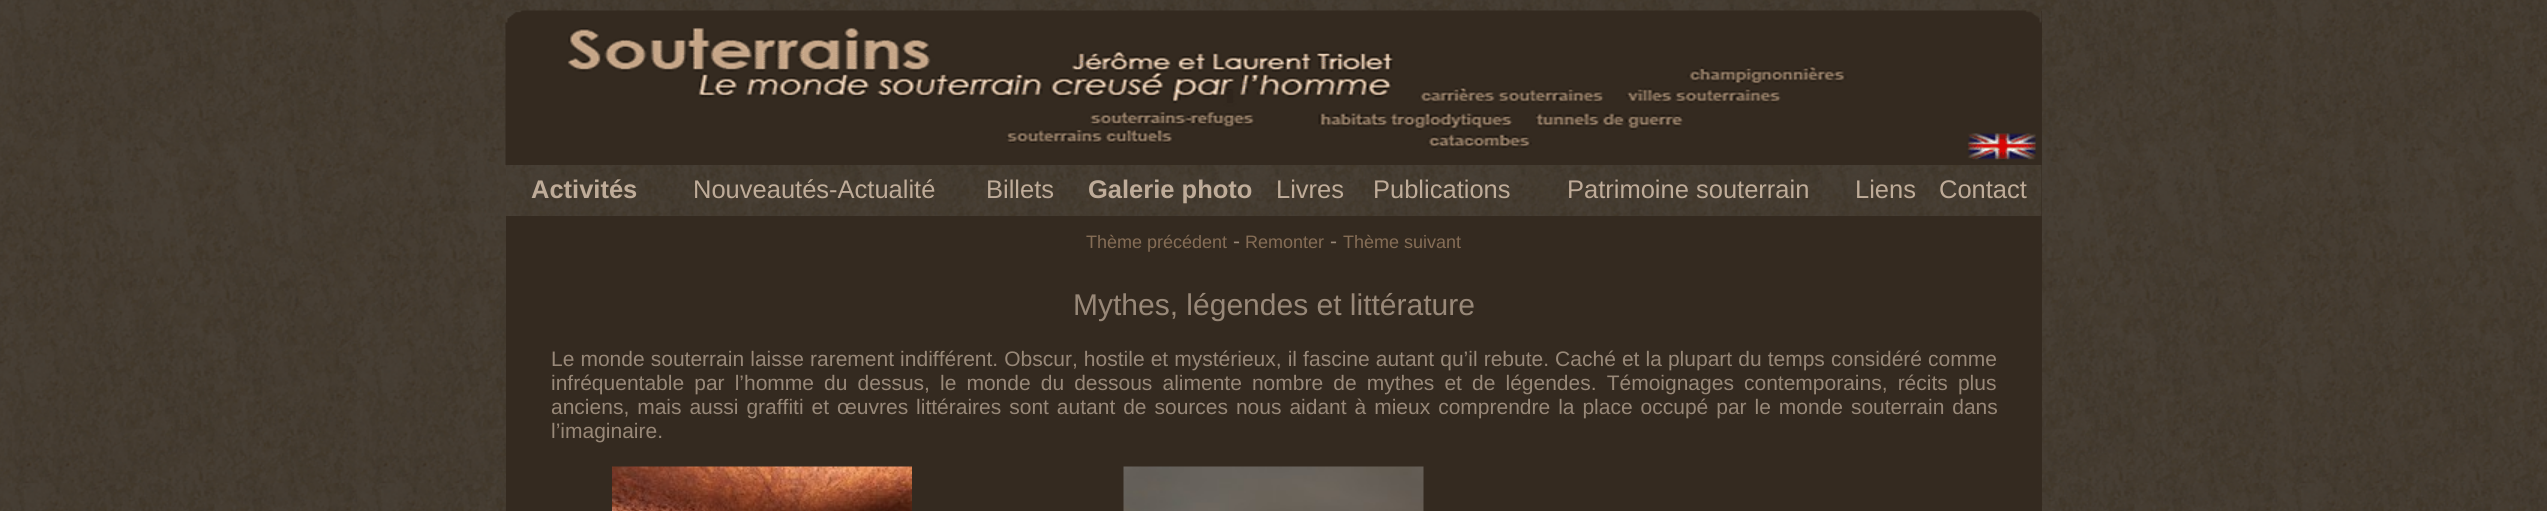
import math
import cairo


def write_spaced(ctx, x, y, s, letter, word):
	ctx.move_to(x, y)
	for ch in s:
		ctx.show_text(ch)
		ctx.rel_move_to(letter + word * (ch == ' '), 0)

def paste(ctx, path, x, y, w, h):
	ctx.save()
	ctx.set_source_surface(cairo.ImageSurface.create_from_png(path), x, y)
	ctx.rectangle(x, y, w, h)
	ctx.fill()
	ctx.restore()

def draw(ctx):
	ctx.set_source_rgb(1, 1, 1)
	ctx.paint()
	paste(ctx, 'media/1.png', 0, 0, 2547, 511)
	ctx.set_source_rgb(0.204, 0.165, 0.125)
	ctx.rectangle(506, 11, 1536, 500)
	ctx.fill()
	paste(ctx, 'media/2.png', 505, 10, 1537, 17)
	paste(ctx, 'media/3.png', 505, 27, 1531, 138)
	paste(ctx, 'media/4.png', 506, 165, 1536, 51)
	ctx.select_font_face('Liberation Sans', cairo.FONT_SLANT_NORMAL, cairo.FONT_WEIGHT_BOLD)
	ctx.set_font_size(25.5)
	ctx.set_source_rgb(0.749, 0.675, 0.6)
	ctx.move_to(531, 198)
	ctx.show_text('Activités')
	ctx.select_font_face('Liberation Sans')
	ctx.move_to(693, 198)
	ctx.show_text('Nouveautés-Actualité')
	ctx.move_to(986, 198)
	ctx.show_text('Billets')
	ctx.select_font_face('Liberation Sans', cairo.FONT_SLANT_NORMAL, cairo.FONT_WEIGHT_BOLD)
	ctx.move_to(1088, 198)
	ctx.show_text('Galerie photo')
	ctx.select_font_face('Liberation Sans')
	for x, y, s in [
		(1276, 198, 'Livres'),
		(1373, 198, 'Publications'),
		(1567, 198, 'Patrimoine souterrain'),
		(1855, 198, 'Liens'),
		(1939, 198, 'Contact'),
	]:
		ctx.move_to(x, y)
		ctx.show_text(s)
	ctx.set_font_size(18)
	ctx.set_source_rgb(0.522, 0.427, 0.337)
	ctx.move_to(1086, 248)
	ctx.show_text('Thème précédent')
	ctx.set_font_size(21)
	ctx.set_source_rgb(0.596, 0.533, 0.471)
	ctx.move_to(1233, 248)
	ctx.show_text('-')
	ctx.set_font_size(18)
	ctx.set_source_rgb(0.522, 0.427, 0.337)
	ctx.move_to(1245, 248)
	ctx.show_text('Remonter')
	ctx.set_font_size(21)
	ctx.set_source_rgb(0.596, 0.533, 0.471)
	ctx.move_to(1330, 248)
	ctx.show_text('-')
	ctx.set_font_size(18)
	ctx.set_source_rgb(0.522, 0.427, 0.337)
	ctx.move_to(1343, 248)
	ctx.show_text('Thème suivant')
	ctx.set_font_size(30)
	ctx.set_source_rgb(0.596, 0.533, 0.471)
	ctx.move_to(1073, 315)
	ctx.show_text('Mythes, légendes et littérature')
	ctx.set_font_size(21)
	write_spaced(ctx, 551, 366, 'Le monde souterrain laisse rarement indifférent. Obscur, hostile et mystérieux, il fascine autant qu’il rebute. Caché et la plupart du temps considéré comme', 0, 0.25)
	write_spaced(ctx, 551, 390, 'infréquentable par l’homme du dessus, le monde du dessous alimente nombre de mythes et de légendes. Témoignages contemporains, récits plus', 0, 4.25)
	write_spaced(ctx, 551, 414, 'anciens, mais aussi graffiti et œuvres littéraires sont autant de sources nous aidant à mieux comprendre la place occupé par le monde souterrain dans', 0, 2.1)
	ctx.move_to(551, 438)
	ctx.show_text('l’imaginaire.')
	paste(ctx, 'media/5.png', 612, 466, 300, 45)
	paste(ctx, 'media/6.png', 1123, 466, 301, 45)


surface = cairo.ImageSurface(cairo.FORMAT_RGB24, 2547, 511)
ctx = cairo.Context(surface)
options = cairo.FontOptions()
options.set_hint_metrics(cairo.HINT_METRICS_OFF)
options.set_hint_style(cairo.HINT_STYLE_NONE)
ctx.set_font_options(options)
ctx.set_miter_limit(4)
draw(ctx)
surface.write_to_png('image.png')
